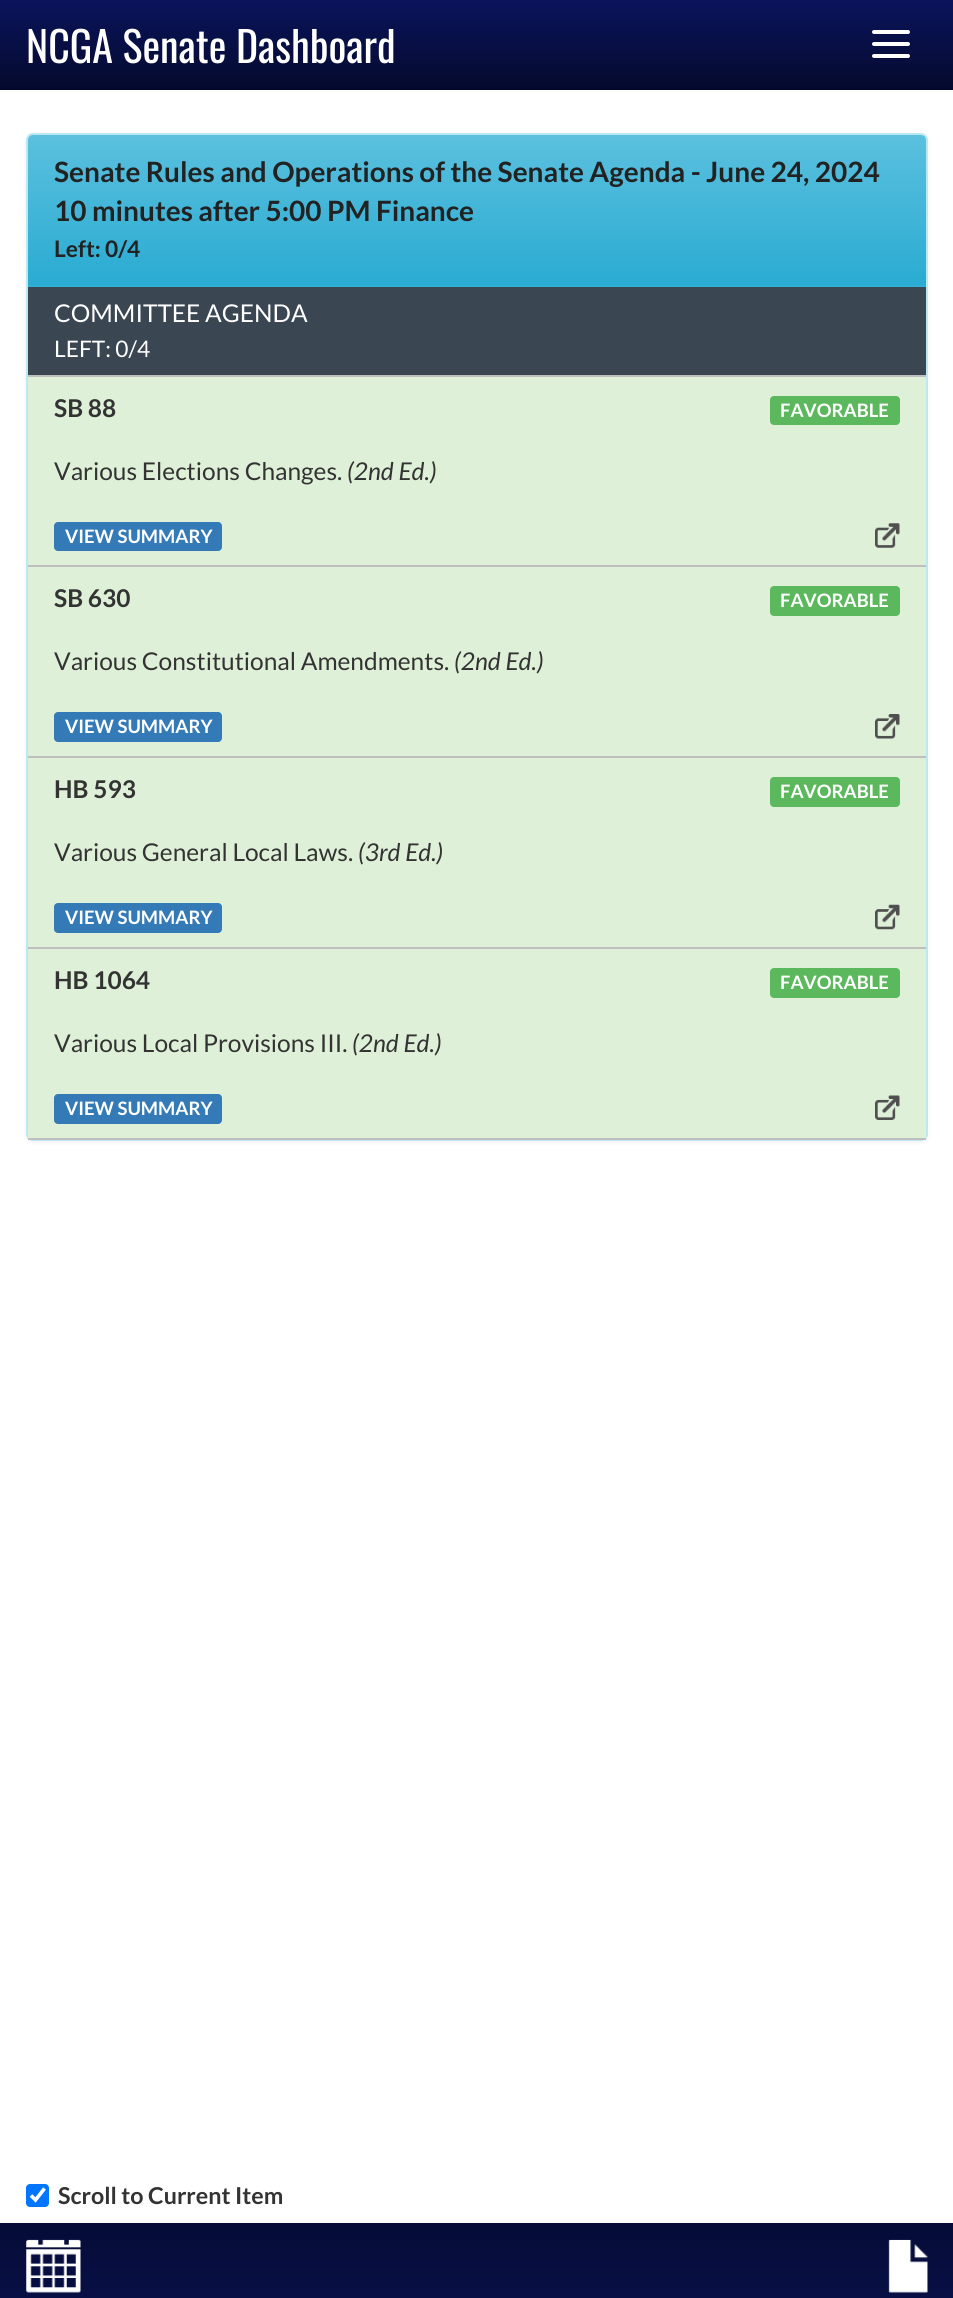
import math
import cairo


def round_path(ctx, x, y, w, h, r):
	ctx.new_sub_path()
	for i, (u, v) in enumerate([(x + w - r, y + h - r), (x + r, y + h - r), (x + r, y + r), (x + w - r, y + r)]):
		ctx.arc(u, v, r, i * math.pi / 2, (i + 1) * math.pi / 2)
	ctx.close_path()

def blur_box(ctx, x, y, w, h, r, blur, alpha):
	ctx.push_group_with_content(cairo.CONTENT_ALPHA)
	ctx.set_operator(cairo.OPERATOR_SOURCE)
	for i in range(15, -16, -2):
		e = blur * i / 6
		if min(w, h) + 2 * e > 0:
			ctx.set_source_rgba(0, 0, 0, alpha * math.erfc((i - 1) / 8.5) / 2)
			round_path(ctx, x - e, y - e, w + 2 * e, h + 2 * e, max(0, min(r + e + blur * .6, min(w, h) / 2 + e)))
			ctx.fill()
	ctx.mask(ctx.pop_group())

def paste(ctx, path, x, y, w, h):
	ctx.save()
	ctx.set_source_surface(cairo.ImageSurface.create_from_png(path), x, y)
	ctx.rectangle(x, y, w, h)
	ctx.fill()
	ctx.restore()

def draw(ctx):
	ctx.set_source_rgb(1, 1, 1)
	ctx.paint()
	gradient = cairo.LinearGradient(477, 0, 477, 88)
	gradient.add_color_stop_rgba(0, 0.039, 0.078, 0.361, 1)
	gradient.add_color_stop_rgba(1, 0.02, 0.039, 0.18, 1)
	ctx.set_source(gradient)
	ctx.rectangle(0, 0, 953, 88)
	ctx.fill()
	ctx.set_source_rgb(0.02, 0.039, 0.18)
	ctx.rectangle(0, 88, 953, 2)
	ctx.fill()
	ctx.select_font_face('Oswald')
	ctx.set_font_size(42)
	ctx.set_source_rgb(1, 1, 1)
	ctx.move_to(26, 63)
	ctx.show_text('NCGA Senate Dashboard')
	round_path(ctx, 872, 30, 38, 4, 2)
	ctx.fill()
	round_path(ctx, 872, 42, 38, 4, 2)
	ctx.fill()
	round_path(ctx, 872, 54, 38, 4, 2)
	ctx.fill()
	ctx.set_source_rgb(0, 0, 0)
	blur_box(ctx, 26, 135, 902, 1008, 7, 2, 0.05)
	round_path(ctx, 27, 134, 900, 1006, 6)
	ctx.set_source_rgb(0.737, 0.91, 0.945)
	ctx.stroke()
	gradient = cairo.LinearGradient(477, 135, 477, 285)
	gradient.add_color_stop_rgba(0, 0.357, 0.753, 0.871, 1)
	gradient.add_color_stop_rgba(1, 0.165, 0.671, 0.824, 1)
	ctx.set_source(gradient)
	ctx.new_path()
	ctx.move_to(33, 135)
	ctx.line_to(921, 135)
	ctx.curve_to(924, 135, 926, 137, 926, 140)
	ctx.line_to(926, 285)
	ctx.line_to(28, 285)
	ctx.line_to(28, 140)
	ctx.curve_to(28, 137, 30, 135, 33, 135)
	ctx.close_path()
	ctx.fill()
	ctx.set_source_rgb(0.192, 0.69, 0.835)
	ctx.rectangle(28, 285, 898, 2)
	ctx.fill()
	ctx.select_font_face('Lato', cairo.FONT_SLANT_NORMAL, cairo.FONT_WEIGHT_BOLD)
	ctx.set_font_size(28)
	ctx.set_source_rgb(0.133, 0.133, 0.133)
	ctx.move_to(54, 182)
	ctx.show_text('Senate Rules and Operations of the Senate Agenda - June 24, 2024')
	ctx.move_to(54, 221)
	ctx.show_text('10 minutes after 5:00 PM Finance')
	ctx.set_font_size(22.75)
	ctx.move_to(54, 257)
	ctx.show_text('Left: 0/4')
	ctx.set_source_rgb(0.227, 0.275, 0.318)
	ctx.rectangle(28, 287, 898, 88)
	ctx.fill()
	ctx.select_font_face('Lato')
	ctx.set_font_size(24.5)
	ctx.set_source_rgb(1, 1, 1)
	ctx.move_to(54, 322)
	ctx.show_text('COMMITTEE AGENDA')
	ctx.set_font_size(22.75)
	ctx.move_to(54, 357)
	ctx.show_text('LEFT: 0/4')
	ctx.set_source_rgb(0.875, 0.941, 0.847)
	ctx.rectangle(28, 377, 898, 188)
	ctx.fill()
	ctx.set_source_rgb(0.749, 0.749, 0.749)
	ctx.rectangle(28, 375, 898, 2)
	ctx.fill()
	ctx.select_font_face('Lato', cairo.FONT_SLANT_NORMAL, cairo.FONT_WEIGHT_BOLD)
	ctx.set_font_size(24.5)
	ctx.set_source_rgb(0.2, 0.2, 0.2)
	ctx.move_to(54, 417)
	ctx.show_text('SB 88')
	ctx.set_source_rgb(0.361, 0.722, 0.361)
	round_path(ctx, 770, 396, 130, 29, 4)
	ctx.fill()
	ctx.set_font_size(18.5)
	ctx.set_source_rgb(1, 1, 1)
	ctx.move_to(780, 417)
	ctx.show_text('FAVORABLE')
	ctx.select_font_face('Lato')
	ctx.set_font_size(24.5)
	ctx.set_source_rgb(0.2, 0.2, 0.2)
	ctx.move_to(54, 480)
	ctx.show_text('Various Elections Changes.')
	ctx.select_font_face('Lato', cairo.FONT_SLANT_ITALIC)
	ctx.move_to(347, 480)
	ctx.show_text('(2nd Ed.)')
	ctx.set_source_rgb(0.2, 0.478, 0.718)
	round_path(ctx, 54, 522, 168, 29, 4)
	ctx.fill()
	ctx.select_font_face('Lato', cairo.FONT_SLANT_NORMAL, cairo.FONT_WEIGHT_BOLD)
	ctx.set_font_size(18.5)
	ctx.set_source_rgb(1, 1, 1)
	ctx.move_to(65, 543)
	ctx.show_text('VIEW SUMMARY')
	paste(ctx, 'media/1.png', 875, 523, 25, 25)
	ctx.set_source_rgb(0.875, 0.941, 0.847)
	ctx.rectangle(28, 567, 898, 189)
	ctx.fill()
	ctx.set_source_rgb(0.749, 0.749, 0.749)
	ctx.rectangle(28, 565, 898, 2)
	ctx.fill()
	ctx.set_font_size(24.5)
	ctx.set_source_rgb(0.2, 0.2, 0.2)
	ctx.move_to(54, 607)
	ctx.show_text('SB 630')
	ctx.set_source_rgb(0.361, 0.722, 0.361)
	round_path(ctx, 770, 586, 130, 30, 4)
	ctx.fill()
	ctx.set_font_size(18.5)
	ctx.set_source_rgb(1, 1, 1)
	ctx.move_to(780, 607)
	ctx.show_text('FAVORABLE')
	ctx.select_font_face('Lato')
	ctx.set_font_size(24.5)
	ctx.set_source_rgb(0.2, 0.2, 0.2)
	ctx.move_to(54, 670)
	ctx.show_text('Various Constitutional Amendments.')
	ctx.select_font_face('Lato', cairo.FONT_SLANT_ITALIC)
	ctx.move_to(454, 670)
	ctx.show_text('(2nd Ed.)')
	ctx.set_source_rgb(0.2, 0.478, 0.718)
	round_path(ctx, 54, 712, 168, 30, 4)
	ctx.fill()
	ctx.select_font_face('Lato', cairo.FONT_SLANT_NORMAL, cairo.FONT_WEIGHT_BOLD)
	ctx.set_font_size(18.5)
	ctx.set_source_rgb(1, 1, 1)
	ctx.move_to(65, 733)
	ctx.show_text('VIEW SUMMARY')
	paste(ctx, 'media/2.png', 875, 714, 25, 25)
	ctx.set_source_rgb(0.875, 0.941, 0.847)
	ctx.rectangle(28, 758, 898, 189)
	ctx.fill()
	ctx.set_source_rgb(0.749, 0.749, 0.749)
	ctx.rectangle(28, 756, 898, 2)
	ctx.fill()
	ctx.set_font_size(24.5)
	ctx.set_source_rgb(0.2, 0.2, 0.2)
	ctx.move_to(54, 798)
	ctx.show_text('HB 593')
	ctx.set_source_rgb(0.361, 0.722, 0.361)
	round_path(ctx, 770, 777, 130, 30, 4)
	ctx.fill()
	ctx.set_font_size(18.5)
	ctx.set_source_rgb(1, 1, 1)
	ctx.move_to(780, 798)
	ctx.show_text('FAVORABLE')
	ctx.select_font_face('Lato')
	ctx.set_font_size(24.5)
	ctx.set_source_rgb(0.2, 0.2, 0.2)
	ctx.move_to(54, 861)
	ctx.show_text('Various General Local Laws.')
	ctx.select_font_face('Lato', cairo.FONT_SLANT_ITALIC)
	ctx.move_to(358, 861)
	ctx.show_text('(3rd Ed.)')
	ctx.set_source_rgb(0.2, 0.478, 0.718)
	round_path(ctx, 54, 903, 168, 30, 4)
	ctx.fill()
	ctx.select_font_face('Lato', cairo.FONT_SLANT_NORMAL, cairo.FONT_WEIGHT_BOLD)
	ctx.set_font_size(18.5)
	ctx.set_source_rgb(1, 1, 1)
	ctx.move_to(65, 924)
	ctx.show_text('VIEW SUMMARY')
	paste(ctx, 'media/3.png', 875, 904, 25, 26)
	ctx.set_source_rgb(0.875, 0.941, 0.847)
	ctx.rectangle(28, 949, 898, 189)
	ctx.fill()
	ctx.set_source_rgb(0.749, 0.749, 0.749)
	ctx.rectangle(28, 947, 898, 2)
	ctx.rectangle(28, 1138, 898, 2)
	ctx.fill()
	ctx.set_font_size(24.5)
	ctx.set_source_rgb(0.2, 0.2, 0.2)
	ctx.move_to(54, 989)
	ctx.show_text('HB 1064')
	ctx.set_source_rgb(0.361, 0.722, 0.361)
	round_path(ctx, 770, 968, 130, 30, 4)
	ctx.fill()
	ctx.set_font_size(18.5)
	ctx.set_source_rgb(1, 1, 1)
	ctx.move_to(780, 989)
	ctx.show_text('FAVORABLE')
	ctx.select_font_face('Lato')
	ctx.set_font_size(24.5)
	ctx.set_source_rgb(0.2, 0.2, 0.2)
	ctx.move_to(54, 1052)
	ctx.show_text('Various Local Provisions III.')
	ctx.select_font_face('Lato', cairo.FONT_SLANT_ITALIC)
	ctx.move_to(352, 1052)
	ctx.show_text('(2nd Ed.)')
	ctx.set_source_rgb(0.2, 0.478, 0.718)
	round_path(ctx, 54, 1094, 168, 30, 4)
	ctx.fill()
	ctx.select_font_face('Lato', cairo.FONT_SLANT_NORMAL, cairo.FONT_WEIGHT_BOLD)
	ctx.set_font_size(18.5)
	ctx.set_source_rgb(1, 1, 1)
	ctx.move_to(65, 1115)
	ctx.show_text('VIEW SUMMARY')
	paste(ctx, 'media/4.png', 875, 1095, 25, 25)
	gradient = cairo.LinearGradient(477, 2177, 477, 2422)
	gradient.add_color_stop_rgba(0, 0.02, 0.039, 0.18, 1)
	gradient.add_color_stop_rgba(1, 0.039, 0.078, 0.361, 1)
	ctx.set_source(gradient)
	ctx.rectangle(0, 2223, 953, 75)
	ctx.fill()
	ctx.set_source_rgb(0, 0.459, 1)
	round_path(ctx, 26, 2184, 23, 23, 4)
	ctx.fill()
	ctx.new_path()
	ctx.move_to(31, 2195.5)
	ctx.line_to(35.5, 2200)
	ctx.line_to(44.5, 2188.5)
	ctx.set_source_rgb(1, 1, 1)
	ctx.set_line_width(3.6)
	ctx.stroke()
	ctx.set_font_size(23.25)
	ctx.set_source_rgb(0.2, 0.2, 0.2)
	ctx.move_to(58, 2204)
	ctx.show_text('Scroll to Current Item')
	paste(ctx, 'media/5.png', 26, 2239, 55, 54)
	paste(ctx, 'media/6.png', 888, 2239, 40, 54)


surface = cairo.ImageSurface(cairo.FORMAT_RGB24, 953, 2298)
ctx = cairo.Context(surface)
options = cairo.FontOptions()
options.set_hint_metrics(cairo.HINT_METRICS_OFF)
options.set_hint_style(cairo.HINT_STYLE_NONE)
ctx.set_font_options(options)
ctx.set_miter_limit(4)
draw(ctx)
surface.write_to_png('image.png')
